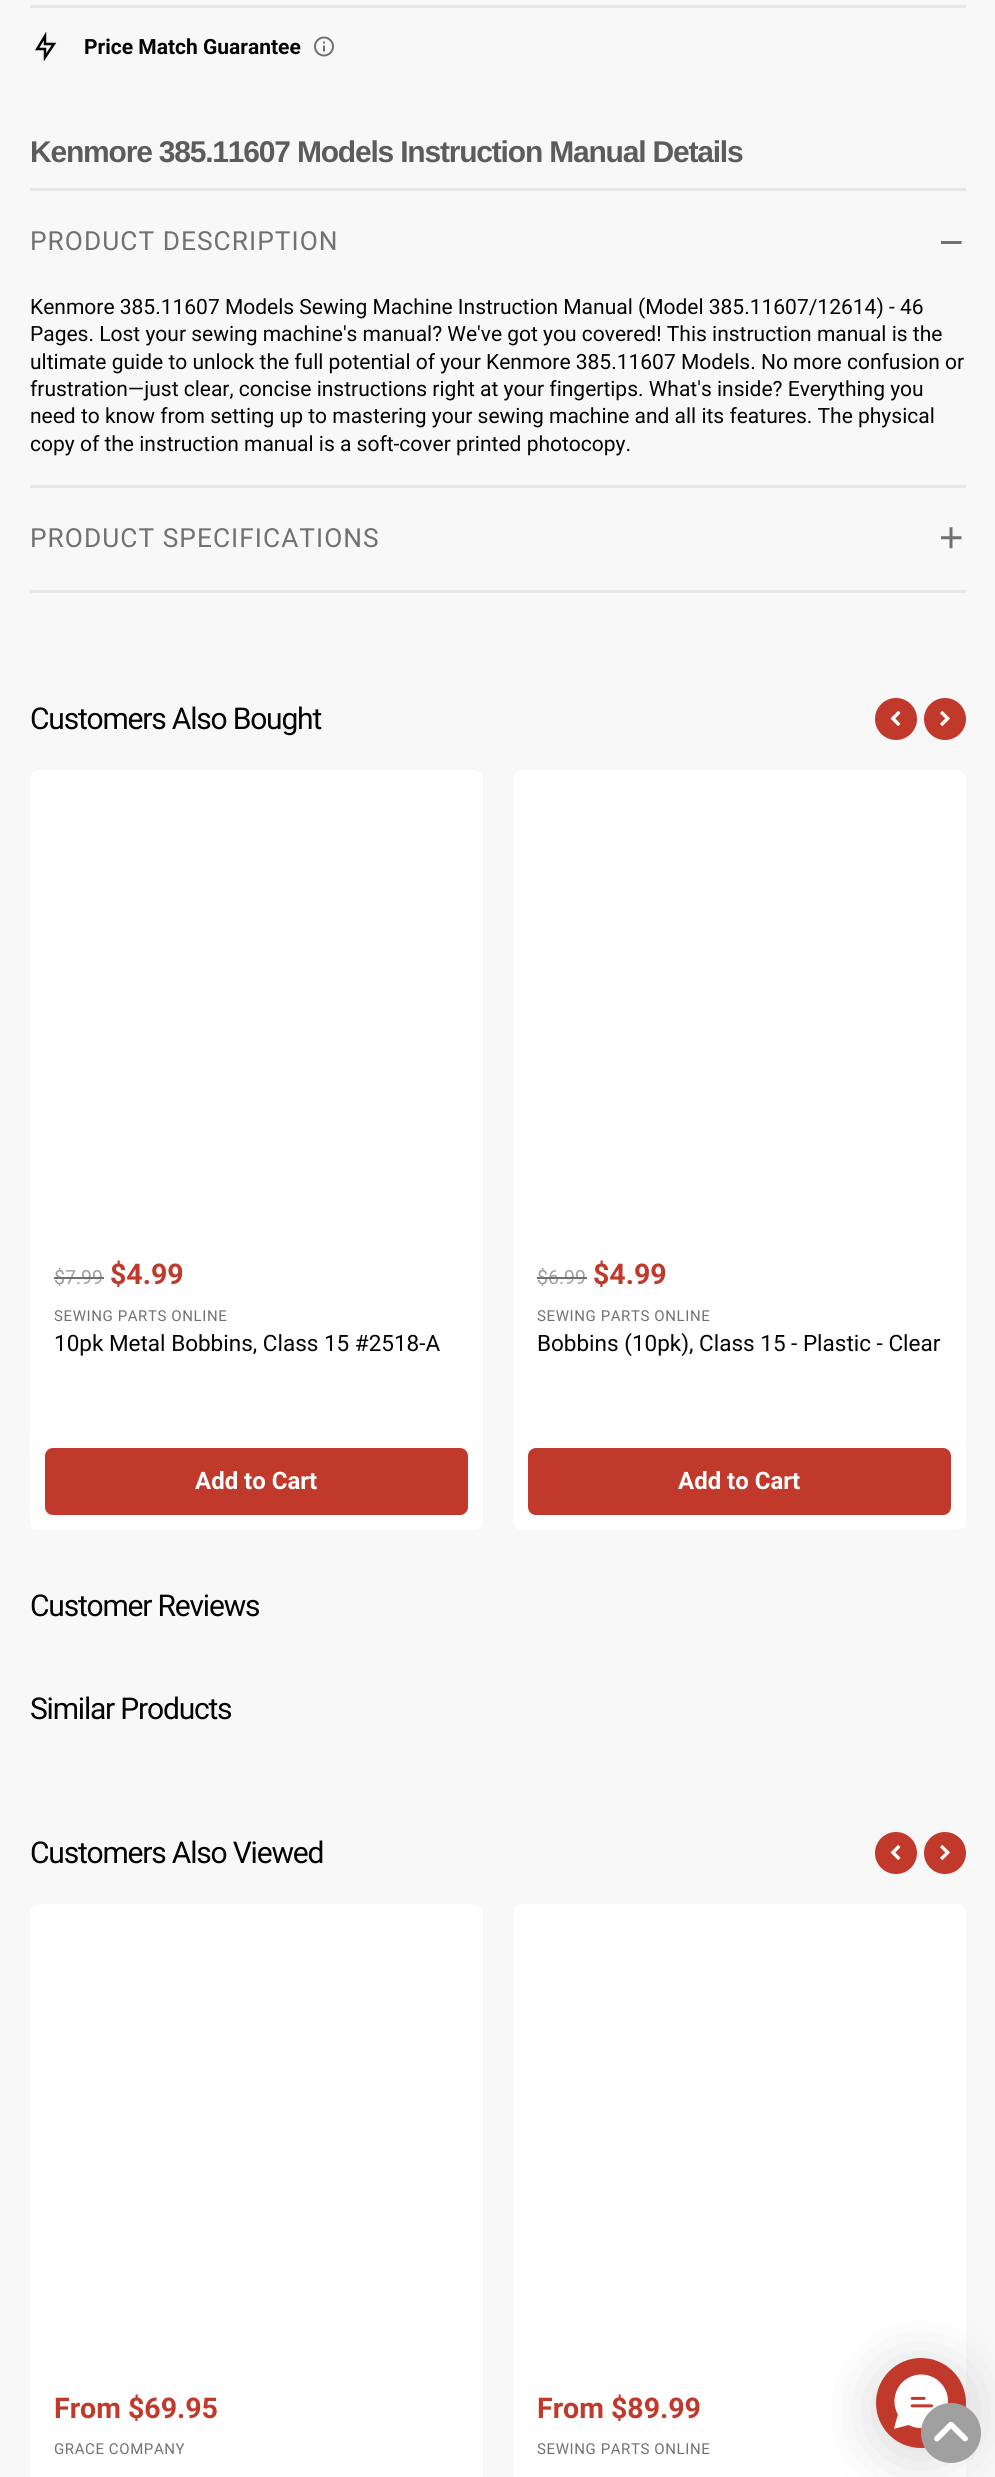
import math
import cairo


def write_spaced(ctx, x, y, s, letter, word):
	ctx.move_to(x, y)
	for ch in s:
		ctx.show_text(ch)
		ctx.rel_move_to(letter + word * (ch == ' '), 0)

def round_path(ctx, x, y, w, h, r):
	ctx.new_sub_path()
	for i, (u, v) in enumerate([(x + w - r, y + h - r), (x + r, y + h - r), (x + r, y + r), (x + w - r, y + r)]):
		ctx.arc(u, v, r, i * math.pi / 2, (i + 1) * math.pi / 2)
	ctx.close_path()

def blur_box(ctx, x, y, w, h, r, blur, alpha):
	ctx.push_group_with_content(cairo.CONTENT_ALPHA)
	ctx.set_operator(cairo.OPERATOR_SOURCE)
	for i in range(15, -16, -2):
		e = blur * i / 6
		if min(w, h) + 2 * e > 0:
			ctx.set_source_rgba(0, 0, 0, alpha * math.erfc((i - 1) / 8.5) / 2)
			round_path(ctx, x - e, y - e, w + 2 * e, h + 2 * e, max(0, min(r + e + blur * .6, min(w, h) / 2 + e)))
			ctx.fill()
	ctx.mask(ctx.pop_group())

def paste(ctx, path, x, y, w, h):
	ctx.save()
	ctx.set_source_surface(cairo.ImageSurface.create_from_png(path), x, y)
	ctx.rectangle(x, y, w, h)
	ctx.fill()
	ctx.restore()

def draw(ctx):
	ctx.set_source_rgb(0.969, 0.969, 0.969)
	ctx.paint()
	ctx.set_source_rgb(0.906, 0.906, 0.906)
	ctx.rectangle(30, 5, 936, 3)
	ctx.fill()
	paste(ctx, 'media/1.png', 35, 32, 22, 30)
	ctx.select_font_face('Roboto', cairo.FONT_SLANT_NORMAL, cairo.FONT_WEIGHT_BOLD)
	ctx.set_font_size(21)
	ctx.set_source_rgb(0.016, 0.016, 0.016)
	ctx.move_to(84, 54)
	ctx.show_text('Price Match Guarantee')
	paste(ctx, 'media/2.png', 314, 36, 20, 21)
	ctx.select_font_face('Liberation Sans', cairo.FONT_SLANT_NORMAL, cairo.FONT_WEIGHT_BOLD)
	ctx.set_font_size(30)
	ctx.set_source_rgb(0.361, 0.361, 0.361)
	write_spaced(ctx, 30, 162, 'Kenmore 385.11607 Models Instruction Manual Details', -1.2, 0)
	ctx.set_source_rgb(0.906, 0.906, 0.906)
	ctx.rectangle(30, 188, 936, 3)
	ctx.fill()
	ctx.select_font_face('Roboto')
	ctx.set_font_size(26.25)
	ctx.set_source_rgb(0.443, 0.443, 0.443)
	write_spaced(ctx, 30, 250, 'PRODUCT DESCRIPTION', 1.05, 0)
	ctx.save()
	ctx.rectangle(941, 240, 21, 5)
	ctx.clip()
	ctx.new_path()
	ctx.move_to(949.5, 241)
	ctx.line_to(961.5, 241)
	ctx.line_to(961.5, 244)
	ctx.line_to(940.5, 244)
	ctx.line_to(940.5, 241)
	ctx.close_path()
	ctx.fill()
	ctx.restore()
	ctx.set_font_size(21)
	ctx.set_source_rgb(0.016, 0.016, 0.016)
	for x, y, s in [
		(30, 314, 'Kenmore 385.11607 Models Sewing Machine Instruction Manual (Model 385.11607/12614) - 46'),
		(30, 341, 'Pages. Lost your sewing machine\'s manual? We\'ve got you covered! This instruction manual is the'),
		(30, 369, 'ultimate guide to unlock the full potential of your Kenmore 385.11607 Models. No more confusion or'),
		(30, 396, 'frustration—just clear, concise instructions right at your fingertips. What\'s inside? Everything you'),
		(30, 423, 'need to know from setting up to mastering your sewing machine and all its features. The physical'),
		(30, 451, 'copy of the instruction manual is a soft-cover printed photocopy.'),
	]:
		ctx.move_to(x, y)
		ctx.show_text(s)
	ctx.set_source_rgb(0.906, 0.906, 0.906)
	ctx.rectangle(30, 485, 936, 3)
	ctx.fill()
	ctx.rectangle(30, 590, 936, 3)
	ctx.fill()
	ctx.set_font_size(26.25)
	ctx.set_source_rgb(0.443, 0.443, 0.443)
	write_spaced(ctx, 30, 547, 'PRODUCT SPECIFICATIONS', 1.05, 0)
	paste(ctx, 'media/3.png', 941, 527, 21, 22)
	ctx.set_font_size(30)
	ctx.set_source_rgb(0.016, 0.016, 0.016)
	write_spaced(ctx, 30, 729, 'Customers Also Bought', -1.2, 0)
	ctx.set_source_rgb(0.753, 0.224, 0.169)
	ctx.new_path()
	ctx.arc(896, 719, 21, 0, 2 * math.pi)
	ctx.fill()
	paste(ctx, 'media/4.png', 890, 711, 11, 15)
	ctx.arc(945, 719, 21, 0, 2 * math.pi)
	ctx.fill()
	paste(ctx, 'media/5.png', 940, 711, 10, 15)
	ctx.set_source_rgb(1, 1, 1)
	round_path(ctx, 30, 770, 453, 760, 9)
	ctx.fill()
	ctx.set_font_size(19.5)
	ctx.set_source_rgb(0.624, 0.624, 0.624)
	ctx.move_to(54, 1284)
	ctx.show_text('$7.99')
	ctx.set_source_rgb(0.443, 0.443, 0.443)
	ctx.rectangle(54, 1277, 50, 2)
	ctx.fill()
	ctx.select_font_face('Roboto', cairo.FONT_SLANT_NORMAL, cairo.FONT_WEIGHT_BOLD)
	ctx.set_font_size(28.5)
	ctx.set_source_rgb(0.753, 0.224, 0.169)
	ctx.move_to(110, 1284)
	ctx.show_text('$4.99')
	ctx.select_font_face('Roboto')
	ctx.set_font_size(15)
	ctx.set_source_rgb(0.443, 0.443, 0.443)
	write_spaced(ctx, 54, 1321, 'SEWING PARTS ONLINE', 0.6, 0)
	ctx.set_font_size(22.5)
	ctx.set_source_rgb(0.016, 0.016, 0.016)
	ctx.move_to(54, 1351)
	ctx.show_text('10pk Metal Bobbins, Class 15 #2518-A')
	ctx.set_source_rgb(0.753, 0.224, 0.169)
	round_path(ctx, 45, 1448, 423, 67, 8)
	ctx.fill()
	ctx.select_font_face('Roboto', cairo.FONT_SLANT_NORMAL, cairo.FONT_WEIGHT_BOLD)
	ctx.set_font_size(24)
	ctx.set_source_rgb(1, 1, 1)
	ctx.move_to(195, 1489)
	ctx.show_text('Add to Cart')
	round_path(ctx, 513, 770, 453, 760, 9)
	ctx.fill()
	ctx.select_font_face('Roboto')
	ctx.set_font_size(19.5)
	ctx.set_source_rgb(0.624, 0.624, 0.624)
	ctx.move_to(537, 1284)
	ctx.show_text('$6.99')
	ctx.set_source_rgb(0.443, 0.443, 0.443)
	ctx.rectangle(537, 1277, 50, 2)
	ctx.fill()
	ctx.select_font_face('Roboto', cairo.FONT_SLANT_NORMAL, cairo.FONT_WEIGHT_BOLD)
	ctx.set_font_size(28.5)
	ctx.set_source_rgb(0.753, 0.224, 0.169)
	ctx.move_to(593, 1284)
	ctx.show_text('$4.99')
	ctx.select_font_face('Roboto')
	ctx.set_font_size(15)
	ctx.set_source_rgb(0.443, 0.443, 0.443)
	write_spaced(ctx, 537, 1321, 'SEWING PARTS ONLINE', 0.6, 0)
	ctx.set_font_size(22.5)
	ctx.set_source_rgb(0.016, 0.016, 0.016)
	ctx.move_to(537, 1351)
	ctx.show_text('Bobbins (10pk), Class 15 - Plastic - Clear')
	ctx.set_source_rgb(0.753, 0.224, 0.169)
	round_path(ctx, 528, 1448, 423, 67, 8)
	ctx.fill()
	ctx.select_font_face('Roboto', cairo.FONT_SLANT_NORMAL, cairo.FONT_WEIGHT_BOLD)
	ctx.set_font_size(24)
	ctx.set_source_rgb(1, 1, 1)
	ctx.move_to(678, 1489)
	ctx.show_text('Add to Cart')
	ctx.select_font_face('Roboto')
	ctx.set_font_size(30)
	ctx.set_source_rgb(0.016, 0.016, 0.016)
	for x, y, s in [
		(30, 1616, 'Customer Reviews'),
		(30, 1719, 'Similar Products'),
		(30, 1863, 'Customers Also Viewed'),
	]:
		write_spaced(ctx, x, y, s, -1.2, 0)
	ctx.set_source_rgb(0.753, 0.224, 0.169)
	ctx.new_path()
	ctx.arc(896, 1853, 21, 0, 2 * math.pi)
	ctx.fill()
	paste(ctx, 'media/4.png', 890, 1845, 11, 15)
	ctx.arc(945, 1853, 21, 0, 2 * math.pi)
	ctx.fill()
	paste(ctx, 'media/5.png', 940, 1845, 10, 15)
	ctx.set_source_rgb(1, 1, 1)
	round_path(ctx, 30, 1904, 453, 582, 9)
	ctx.fill()
	ctx.select_font_face('Roboto', cairo.FONT_SLANT_NORMAL, cairo.FONT_WEIGHT_BOLD)
	ctx.set_font_size(28.5)
	ctx.set_source_rgb(0.753, 0.224, 0.169)
	ctx.move_to(54, 2418)
	ctx.show_text('From $69.95')
	ctx.select_font_face('Roboto')
	ctx.set_font_size(15)
	ctx.set_source_rgb(0.443, 0.443, 0.443)
	write_spaced(ctx, 54, 2454, 'GRACE COMPANY', 0.6, 0)
	ctx.set_source_rgb(1, 1, 1)
	round_path(ctx, 513, 1904, 453, 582, 9)
	ctx.fill()
	ctx.select_font_face('Roboto', cairo.FONT_SLANT_NORMAL, cairo.FONT_WEIGHT_BOLD)
	ctx.set_font_size(28.5)
	ctx.set_source_rgb(0.753, 0.224, 0.169)
	ctx.move_to(537, 2418)
	ctx.show_text('From $89.99')
	ctx.select_font_face('Roboto')
	ctx.set_font_size(15)
	ctx.set_source_rgb(0.443, 0.443, 0.443)
	write_spaced(ctx, 537, 2454, 'SEWING PARTS ONLINE', 0.6, 0)
	ctx.set_source_rgb(0, 0, 0)
	blur_box(ctx, 876, 2366, 90, 90, 45, 30, 0.16)
	ctx.set_source_rgb(0.753, 0.224, 0.169)
	ctx.arc(921, 2403, 45, 0, 2 * math.pi)
	ctx.fill()
	paste(ctx, 'media/6.png', 894, 2374, 54, 55)
	ctx.set_source_rgb(0.624, 0.624, 0.624)
	ctx.arc(951, 2433, 30, 0, 2 * math.pi)
	ctx.fill()
	paste(ctx, 'media/7.png', 934, 2421, 34, 21)


surface = cairo.ImageSurface(cairo.FORMAT_RGB24, 995, 2477)
ctx = cairo.Context(surface)
options = cairo.FontOptions()
options.set_hint_metrics(cairo.HINT_METRICS_OFF)
options.set_hint_style(cairo.HINT_STYLE_NONE)
ctx.set_font_options(options)
ctx.set_miter_limit(4)
draw(ctx)
surface.write_to_png('image.png')
